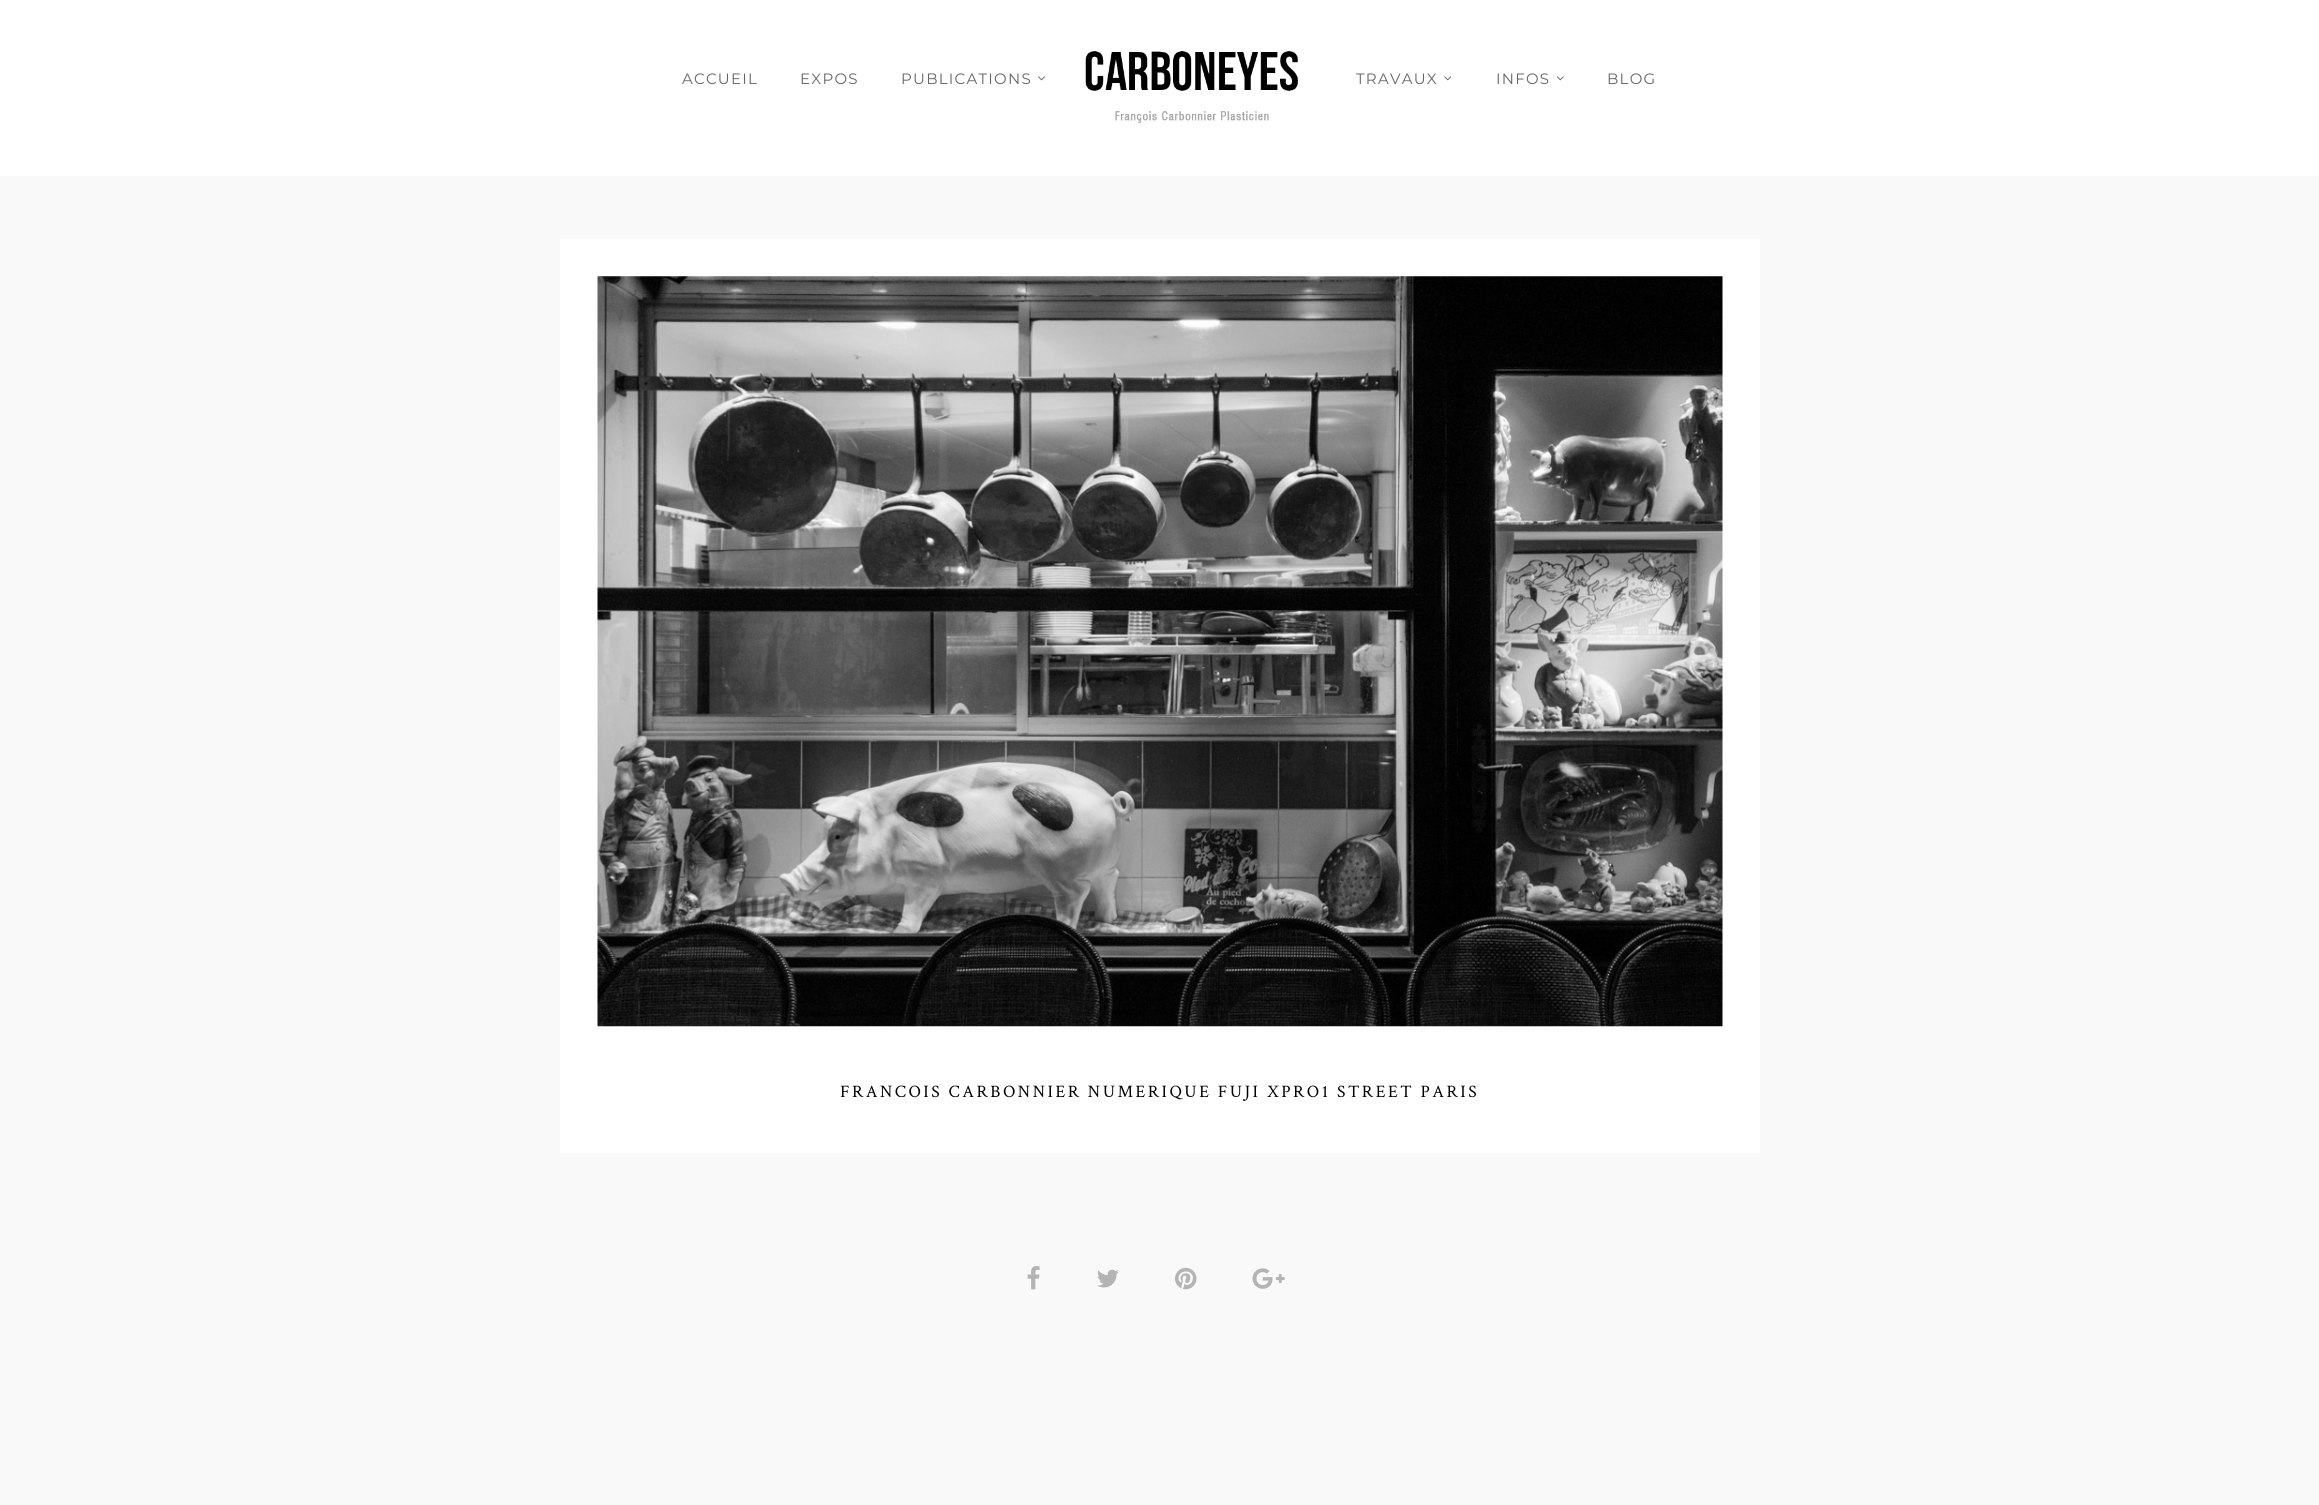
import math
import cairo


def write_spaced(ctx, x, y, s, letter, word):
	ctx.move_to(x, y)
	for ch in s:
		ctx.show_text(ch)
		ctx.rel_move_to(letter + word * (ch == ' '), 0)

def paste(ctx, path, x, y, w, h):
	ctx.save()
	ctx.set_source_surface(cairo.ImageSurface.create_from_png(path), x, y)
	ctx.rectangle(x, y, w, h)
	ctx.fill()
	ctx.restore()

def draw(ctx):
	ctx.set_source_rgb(1, 1, 1)
	ctx.paint()
	ctx.select_font_face('Montserrat')
	ctx.set_font_size(15)
	ctx.set_source_rgb(0.4, 0.4, 0.4)
	for x, y, s in [
		(682, 84, 'ACCUEIL'),
		(800, 84, 'EXPOS'),
		(901, 84, 'PUBLICATIONS'),
	]:
		write_spaced(ctx, x, y, s, 1.25, 0)
	paste(ctx, 'media/1.png', 1038, 76, 7, 5)
	paste(ctx, 'media/2.png', 1085, 51, 213, 72)
	write_spaced(ctx, 1356, 84, 'TRAVAUX', 1.25, 0)
	paste(ctx, 'media/3.png', 1444, 76, 8, 5)
	write_spaced(ctx, 1496, 84, 'INFOS', 1.25, 0)
	paste(ctx, 'media/4.png', 1556, 76, 8, 5)
	write_spaced(ctx, 1607, 84, 'BLOG', 1.25, 0)
	ctx.set_source_rgb(0.976, 0.976, 0.976)
	ctx.rectangle(0, 176, 2319, 1329)
	ctx.fill()
	ctx.set_source_rgb(1, 1, 1)
	ctx.rectangle(560, 239, 1200, 914)
	ctx.fill()
	paste(ctx, 'media/5.png', 597, 276, 1126, 751)
	ctx.select_font_face('Crimson Text')
	ctx.set_font_size(17.5)
	ctx.set_source_rgb(0, 0, 0)
	write_spaced(ctx, 840, 1097, 'FRANCOIS CARBONNIER NUMERIQUE FUJI XPRO1 STREET PARIS', 2.5, 0)
	paste(ctx, 'media/6.png', 1027, 1266, 13, 24)
	paste(ctx, 'media/7.png', 1097, 1269, 22, 19)
	paste(ctx, 'media/8.png', 1175, 1267, 22, 23)
	paste(ctx, 'media/9.png', 1252, 1268, 33, 21)


surface = cairo.ImageSurface(cairo.FORMAT_RGB24, 2319, 1505)
ctx = cairo.Context(surface)
options = cairo.FontOptions()
options.set_hint_metrics(cairo.HINT_METRICS_OFF)
options.set_hint_style(cairo.HINT_STYLE_NONE)
ctx.set_font_options(options)
ctx.set_miter_limit(4)
draw(ctx)
surface.write_to_png('image.png')
